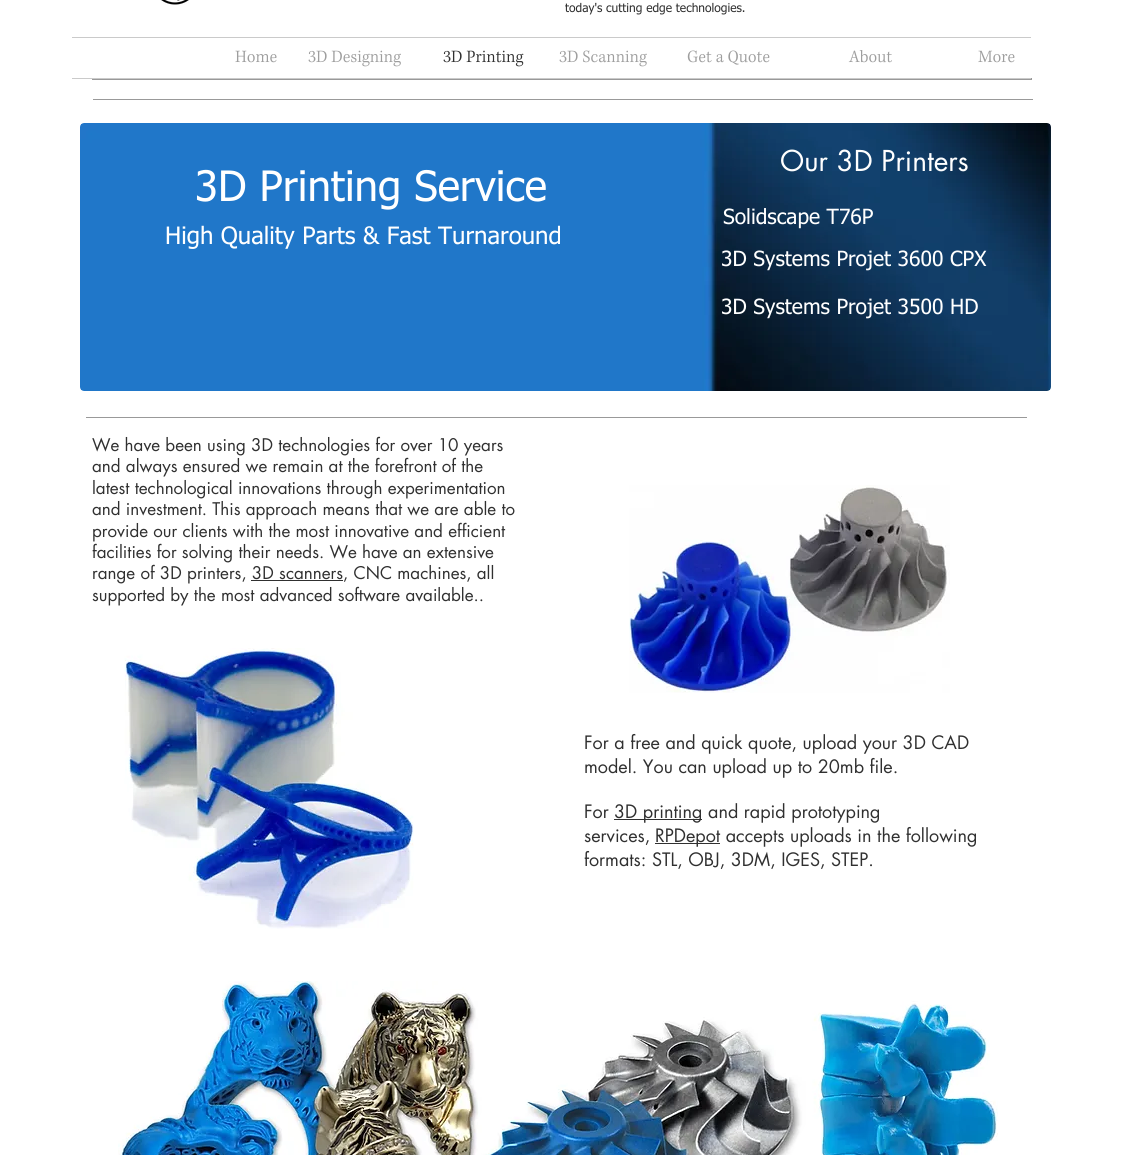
import math
import cairo


def paste(ctx, path, x, y, w, h):
	ctx.save()
	ctx.set_source_surface(cairo.ImageSurface.create_from_png(path), x, y)
	ctx.rectangle(x, y, w, h)
	ctx.fill()
	ctx.restore()

def draw(ctx):
	ctx.set_source_rgb(1, 1, 1)
	ctx.paint()
	paste(ctx, 'media/1.png', 161, 0, 28, 5)
	ctx.select_font_face('tahoma')
	ctx.set_font_size(12)
	ctx.set_source_rgb(0.188, 0.188, 0.188)
	ctx.move_to(565, 12)
	ctx.show_text('today\'s cutting edge technologies.')
	ctx.set_source_rgb(0.792, 0.792, 0.792)
	ctx.rectangle(72, 37, 959, 1)
	ctx.fill()
	ctx.set_source_rgb(0.6, 0.6, 0.6)
	ctx.rectangle(92, 78, 940, 2)
	ctx.fill()
	ctx.set_source_rgb(0.792, 0.792, 0.792)
	ctx.rectangle(72, 78, 959, 1)
	ctx.fill()
	paste(ctx, 'media/2.png', 235, 50, 42, 13)
	paste(ctx, 'media/3.png', 308, 50, 93, 17)
	paste(ctx, 'media/4.png', 443, 50, 81, 17)
	paste(ctx, 'media/5.png', 559, 50, 88, 17)
	paste(ctx, 'media/6.png', 687, 50, 83, 15)
	paste(ctx, 'media/7.png', 848, 50, 44, 13)
	paste(ctx, 'media/8.png', 978, 50, 37, 13)
	ctx.set_source_rgb(0.6, 0.6, 0.6)
	ctx.rectangle(93, 99, 940, 1)
	ctx.fill()
	paste(ctx, 'media/9.png', 80, 123, 971, 268)
	ctx.select_font_face('futura')
	ctx.set_font_size(28)
	ctx.set_source_rgb(1, 1, 1)
	ctx.move_to(780, 171)
	ctx.show_text('Our 3D Printers')
	ctx.select_font_face('tahoma')
	ctx.set_font_size(42)
	ctx.move_to(195, 201)
	ctx.show_text('3D Printing Service')
	ctx.set_font_size(21)
	ctx.move_to(723, 224)
	ctx.show_text('Solidscape T76P')
	ctx.set_font_size(24)
	ctx.move_to(165, 244)
	ctx.show_text('High Quality Parts & Fast Turnaround')
	ctx.set_font_size(21)
	ctx.move_to(721, 266)
	ctx.show_text('3D Systems Projet 3600 CPX')
	ctx.move_to(721, 314)
	ctx.show_text('3D Systems Projet 3500 HD')
	ctx.set_source_rgb(0.6, 0.6, 0.6)
	ctx.rectangle(86, 417, 941, 1)
	ctx.fill()
	ctx.select_font_face('futura')
	ctx.set_font_size(17)
	ctx.set_source_rgb(0.188, 0.188, 0.188)
	for x, y, s in [
		(92, 451, 'We have been using 3D technologies for over 10 years'),
		(92, 472, 'and always ensured we remain at the forefront of the'),
		(92, 494, 'latest technological innovations through experimentation'),
		(92, 515, 'and investment. This approach means that we are able to'),
		(92, 537, 'provide our clients with the most innovative and efficient'),
		(92, 558, 'facilities for solving their needs. We have an extensive'),
		(92, 579, 'range of 3D printers, 3D scanners, CNC machines, all'),
	]:
		ctx.move_to(x, y)
		ctx.show_text(s)
	ctx.rectangle(251, 580, 92, 1)
	ctx.fill()
	ctx.move_to(92, 601)
	ctx.show_text('supported by the most advanced software available..')
	paste(ctx, 'media/10.png', 629, 485, 321, 208)
	paste(ctx, 'media/11.png', 124, 648, 290, 281)
	ctx.set_font_size(18)
	for x, y, s in [
		(584, 749, 'For a free and quick quote, upload your 3D CAD'),
		(584, 773, 'model. You can upload up to 20mb file.'),
		(584, 818, 'For'),
	]:
		ctx.move_to(x, y)
		ctx.show_text(s)
	ctx.rectangle(614, 819, 88, 1)
	ctx.fill()
	ctx.move_to(614, 818)
	ctx.show_text('3D printing and rapid prototyping')
	ctx.move_to(584, 842)
	ctx.show_text('services,')
	ctx.rectangle(655, 843, 65, 1)
	ctx.fill()
	ctx.move_to(655, 842)
	ctx.show_text('RPDepot accepts uploads in the following')
	ctx.move_to(584, 866)
	ctx.show_text('formats: STL, OBJ, 3DM, IGES, STEP.')
	paste(ctx, 'media/12.png', 118, 981, 880, 174)


surface = cairo.ImageSurface(cairo.FORMAT_RGB24, 1123, 1155)
ctx = cairo.Context(surface)
options = cairo.FontOptions()
options.set_hint_metrics(cairo.HINT_METRICS_OFF)
options.set_hint_style(cairo.HINT_STYLE_NONE)
ctx.set_font_options(options)
ctx.set_miter_limit(4)
draw(ctx)
surface.write_to_png('image.png')
